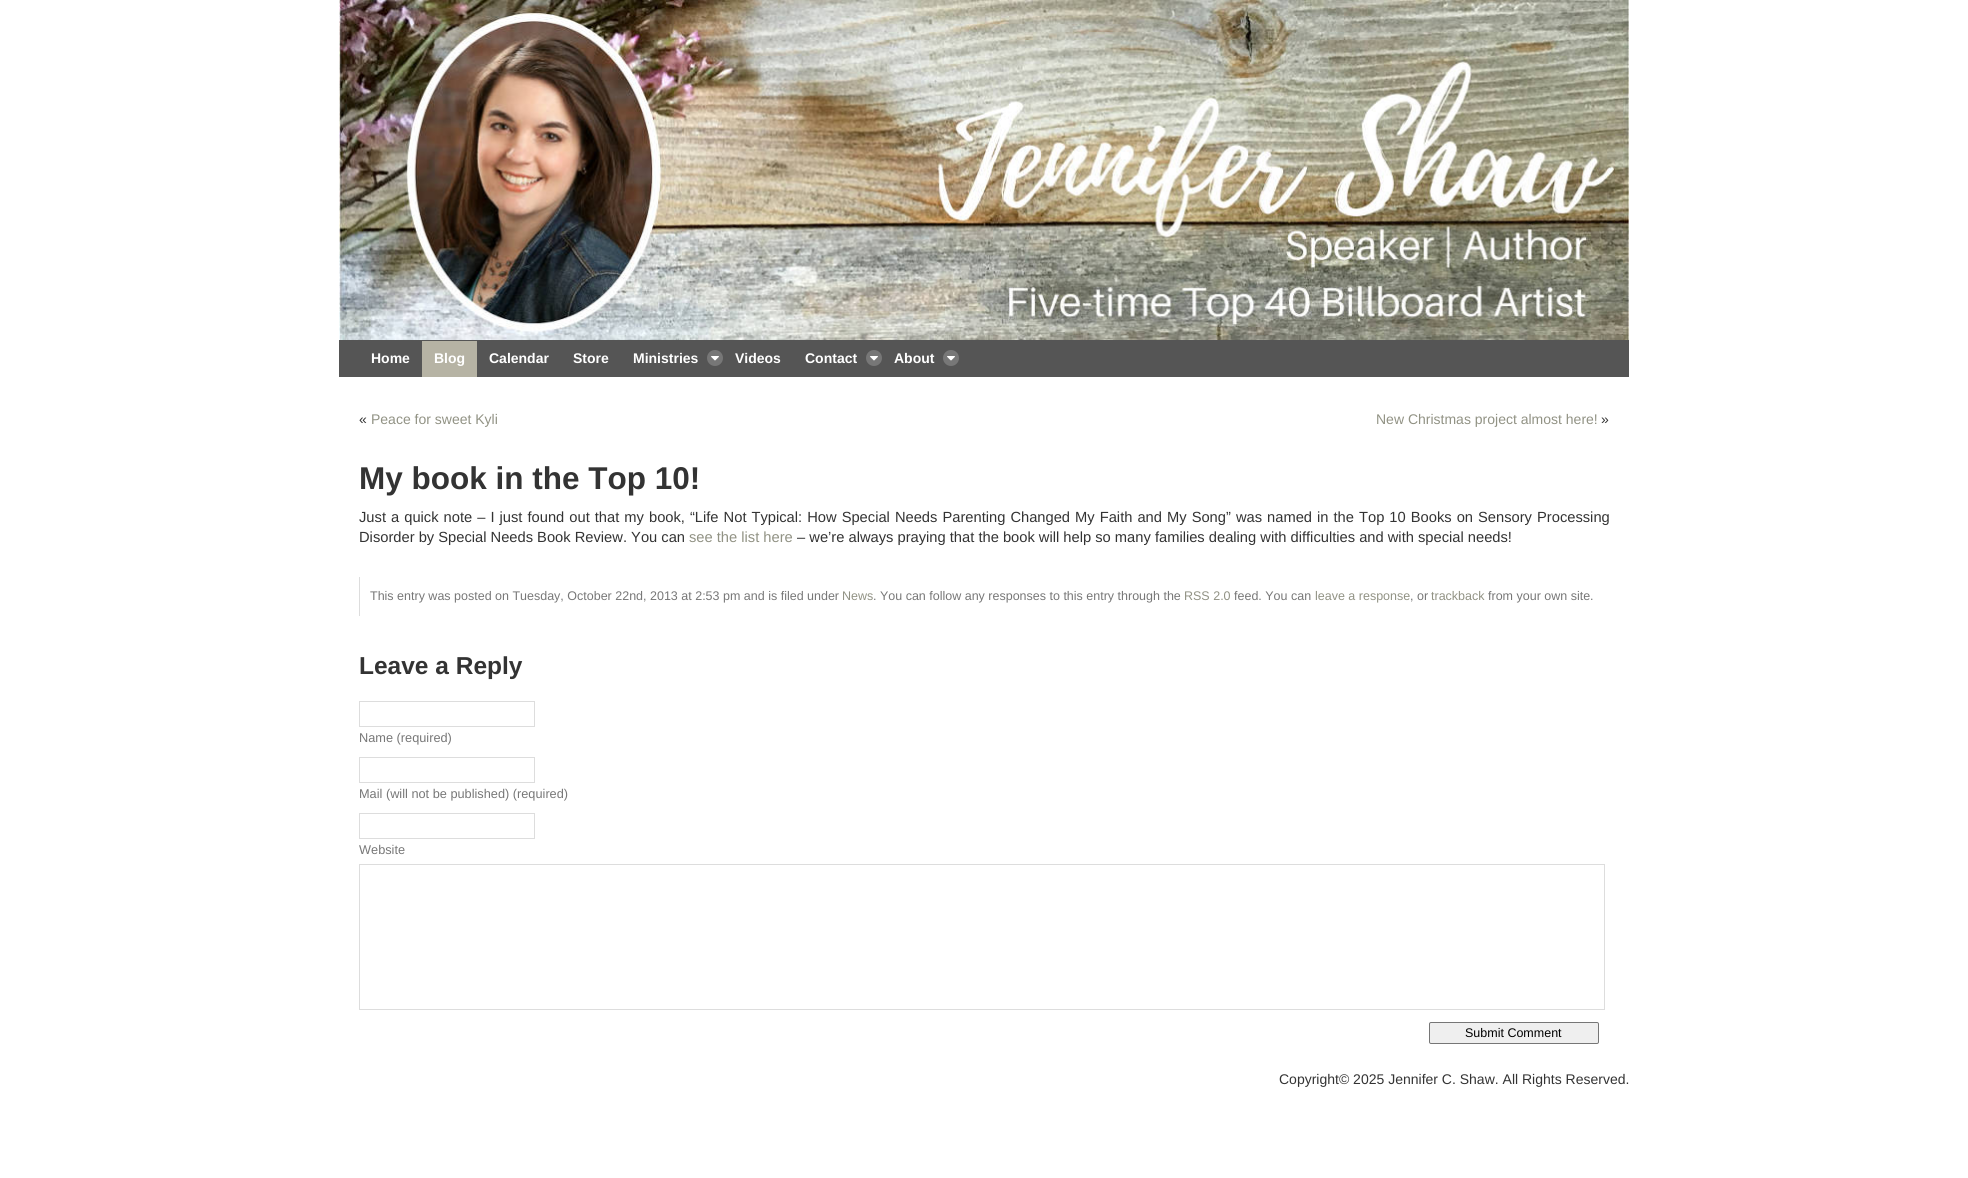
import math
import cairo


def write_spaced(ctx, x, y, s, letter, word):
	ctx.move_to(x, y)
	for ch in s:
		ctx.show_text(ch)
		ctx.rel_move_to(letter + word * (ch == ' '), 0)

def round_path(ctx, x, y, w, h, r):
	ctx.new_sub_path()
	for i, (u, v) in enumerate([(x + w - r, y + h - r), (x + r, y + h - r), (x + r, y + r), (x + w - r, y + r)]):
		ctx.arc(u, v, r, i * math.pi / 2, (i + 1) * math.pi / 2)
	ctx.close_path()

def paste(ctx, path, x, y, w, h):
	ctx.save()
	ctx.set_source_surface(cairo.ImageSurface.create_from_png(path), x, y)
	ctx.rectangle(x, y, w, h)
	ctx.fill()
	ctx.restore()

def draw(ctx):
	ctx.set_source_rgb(1, 1, 1)
	ctx.paint()
	paste(ctx, 'media/1.png', 339, 0, 1290, 340)
	ctx.set_source_rgb(0.333, 0.333, 0.333)
	ctx.rectangle(339, 340, 1290, 37)
	ctx.fill()
	ctx.select_font_face('Liberation Sans', cairo.FONT_SLANT_NORMAL, cairo.FONT_WEIGHT_BOLD)
	ctx.set_font_size(14)
	ctx.set_source_rgb(1, 1, 1)
	ctx.move_to(371, 363)
	ctx.show_text('Home')
	ctx.set_source_rgb(0.714, 0.702, 0.643)
	ctx.rectangle(422, 341, 55, 36)
	ctx.fill()
	ctx.set_source_rgb(1, 1, 1)
	for x, y, s in [
		(434, 363, 'Blog'),
		(489, 363, 'Calendar'),
		(573, 363, 'Store'),
		(633, 363, 'Ministries'),
	]:
		ctx.move_to(x, y)
		ctx.show_text(s)
	ctx.set_source_rgb(0.467, 0.467, 0.467)
	ctx.new_path()
	ctx.arc(715, 358, 8, 0, 2 * math.pi)
	ctx.fill()
	paste(ctx, 'media/2.png', 711, 356, 8, 5)
	ctx.set_source_rgb(1, 1, 1)
	ctx.move_to(735, 363)
	ctx.show_text('Videos')
	ctx.move_to(805, 363)
	ctx.show_text('Contact')
	ctx.set_source_rgb(0.467, 0.467, 0.467)
	ctx.new_path()
	ctx.arc(874, 358, 8, 0, 2 * math.pi)
	ctx.fill()
	paste(ctx, 'media/2.png', 870, 356, 8, 5)
	ctx.set_source_rgb(1, 1, 1)
	ctx.move_to(894, 363)
	ctx.show_text('About')
	ctx.set_source_rgb(0.467, 0.467, 0.467)
	ctx.new_path()
	ctx.arc(951, 358, 8, 0, 2 * math.pi)
	ctx.fill()
	paste(ctx, 'media/2.png', 947, 356, 8, 5)
	ctx.select_font_face('Liberation Sans')
	ctx.set_source_rgb(0.2, 0.2, 0.2)
	ctx.move_to(359, 424)
	ctx.show_text('«')
	ctx.set_source_rgb(0.569, 0.573, 0.518)
	ctx.move_to(371, 424)
	ctx.show_text('Peace for sweet Kyli')
	ctx.move_to(1376, 424)
	ctx.show_text('New Christmas project almost here!')
	ctx.set_source_rgb(0.2, 0.2, 0.2)
	ctx.move_to(1601, 424)
	ctx.show_text('»')
	ctx.select_font_face('Liberation Sans', cairo.FONT_SLANT_NORMAL, cairo.FONT_WEIGHT_BOLD)
	ctx.set_font_size(31.5)
	ctx.move_to(359, 489)
	ctx.show_text('My book in the Top 10!')
	ctx.select_font_face('Liberation Sans')
	ctx.set_font_size(14.7)
	write_spaced(ctx, 359, 522, 'Just a quick note – I just found out that my book, “Life Not Typical: How Special Needs Parenting Changed My Faith and My Song” was named in the Top 10 Books on Sensory Processing', 0, 0.95)
	ctx.move_to(359, 542)
	ctx.show_text('Disorder by Special Needs Book Review. You can')
	ctx.set_source_rgb(0.569, 0.573, 0.518)
	ctx.move_to(689, 542)
	ctx.show_text('see the list here')
	ctx.set_source_rgb(0.2, 0.2, 0.2)
	ctx.move_to(797, 542)
	ctx.show_text('– we’re always praying that the book will help so many families dealing with difficulties and with special needs!')
	ctx.set_source_rgb(0.867, 0.867, 0.867)
	ctx.rectangle(359, 577, 1, 39)
	ctx.fill()
	ctx.set_font_size(12.5)
	ctx.set_source_rgb(0.467, 0.467, 0.467)
	ctx.move_to(370, 600)
	ctx.show_text('This entry was posted on Tuesday, October 22nd, 2013 at 2:53 pm and is filed under')
	ctx.set_source_rgb(0.569, 0.573, 0.518)
	ctx.move_to(842, 600)
	ctx.show_text('News')
	ctx.set_source_rgb(0.467, 0.467, 0.467)
	ctx.move_to(873, 600)
	ctx.show_text('. You can follow any responses to this entry through the')
	ctx.set_source_rgb(0.569, 0.573, 0.518)
	ctx.move_to(1184, 600)
	ctx.show_text('RSS 2.0')
	ctx.set_source_rgb(0.467, 0.467, 0.467)
	ctx.move_to(1234, 600)
	ctx.show_text('feed. You can')
	ctx.set_source_rgb(0.569, 0.573, 0.518)
	ctx.move_to(1315, 600)
	ctx.show_text('leave a response')
	ctx.set_source_rgb(0.467, 0.467, 0.467)
	ctx.move_to(1410, 600)
	ctx.show_text(', or')
	ctx.set_source_rgb(0.569, 0.573, 0.518)
	ctx.move_to(1431, 600)
	ctx.show_text('trackback')
	ctx.set_source_rgb(0.467, 0.467, 0.467)
	ctx.move_to(1488, 600)
	ctx.show_text('from your own site.')
	ctx.select_font_face('Liberation Sans', cairo.FONT_SLANT_NORMAL, cairo.FONT_WEIGHT_BOLD)
	ctx.set_font_size(24.5)
	ctx.set_source_rgb(0.2, 0.2, 0.2)
	ctx.move_to(359, 674)
	ctx.show_text('Leave a Reply')
	ctx.rectangle(359.5, 701.5, 175, 25)
	ctx.set_source_rgb(0.867, 0.867, 0.867)
	ctx.set_line_width(1)
	ctx.stroke()
	ctx.select_font_face('Liberation Sans')
	ctx.set_font_size(12.75)
	ctx.set_source_rgb(0.467, 0.467, 0.467)
	ctx.move_to(359, 742)
	ctx.show_text('Name (required)')
	ctx.rectangle(359.5, 757.5, 175, 25)
	ctx.set_source_rgb(0.867, 0.867, 0.867)
	ctx.stroke()
	ctx.set_source_rgb(0.467, 0.467, 0.467)
	ctx.move_to(359, 798)
	ctx.show_text('Mail (will not be published) (required)')
	ctx.rectangle(359.5, 813.5, 175, 25)
	ctx.set_source_rgb(0.867, 0.867, 0.867)
	ctx.stroke()
	ctx.set_source_rgb(0.467, 0.467, 0.467)
	ctx.move_to(359, 854)
	ctx.show_text('Website')
	ctx.rectangle(359.5, 864.5, 1245, 145)
	ctx.set_source_rgb(0.867, 0.867, 0.867)
	ctx.stroke()
	ctx.set_source_rgb(0.937, 0.937, 0.937)
	round_path(ctx, 1429.5, 1022.5, 169, 21, 1.5)
	ctx.fill_preserve()
	ctx.set_source_rgb(0.463, 0.463, 0.463)
	ctx.stroke()
	ctx.set_font_size(12.5)
	ctx.set_source_rgb(0, 0, 0)
	ctx.move_to(1465, 1037)
	ctx.show_text('Submit Comment')
	ctx.set_font_size(14)
	ctx.set_source_rgb(0.2, 0.2, 0.2)
	ctx.move_to(1279, 1084)
	ctx.show_text('Copyright© 2025 Jennifer C. Shaw. All Rights Reserved.')


surface = cairo.ImageSurface(cairo.FORMAT_RGB24, 1968, 1178)
ctx = cairo.Context(surface)
options = cairo.FontOptions()
options.set_hint_metrics(cairo.HINT_METRICS_OFF)
options.set_hint_style(cairo.HINT_STYLE_NONE)
ctx.set_font_options(options)
ctx.set_miter_limit(4)
draw(ctx)
surface.write_to_png('image.png')
